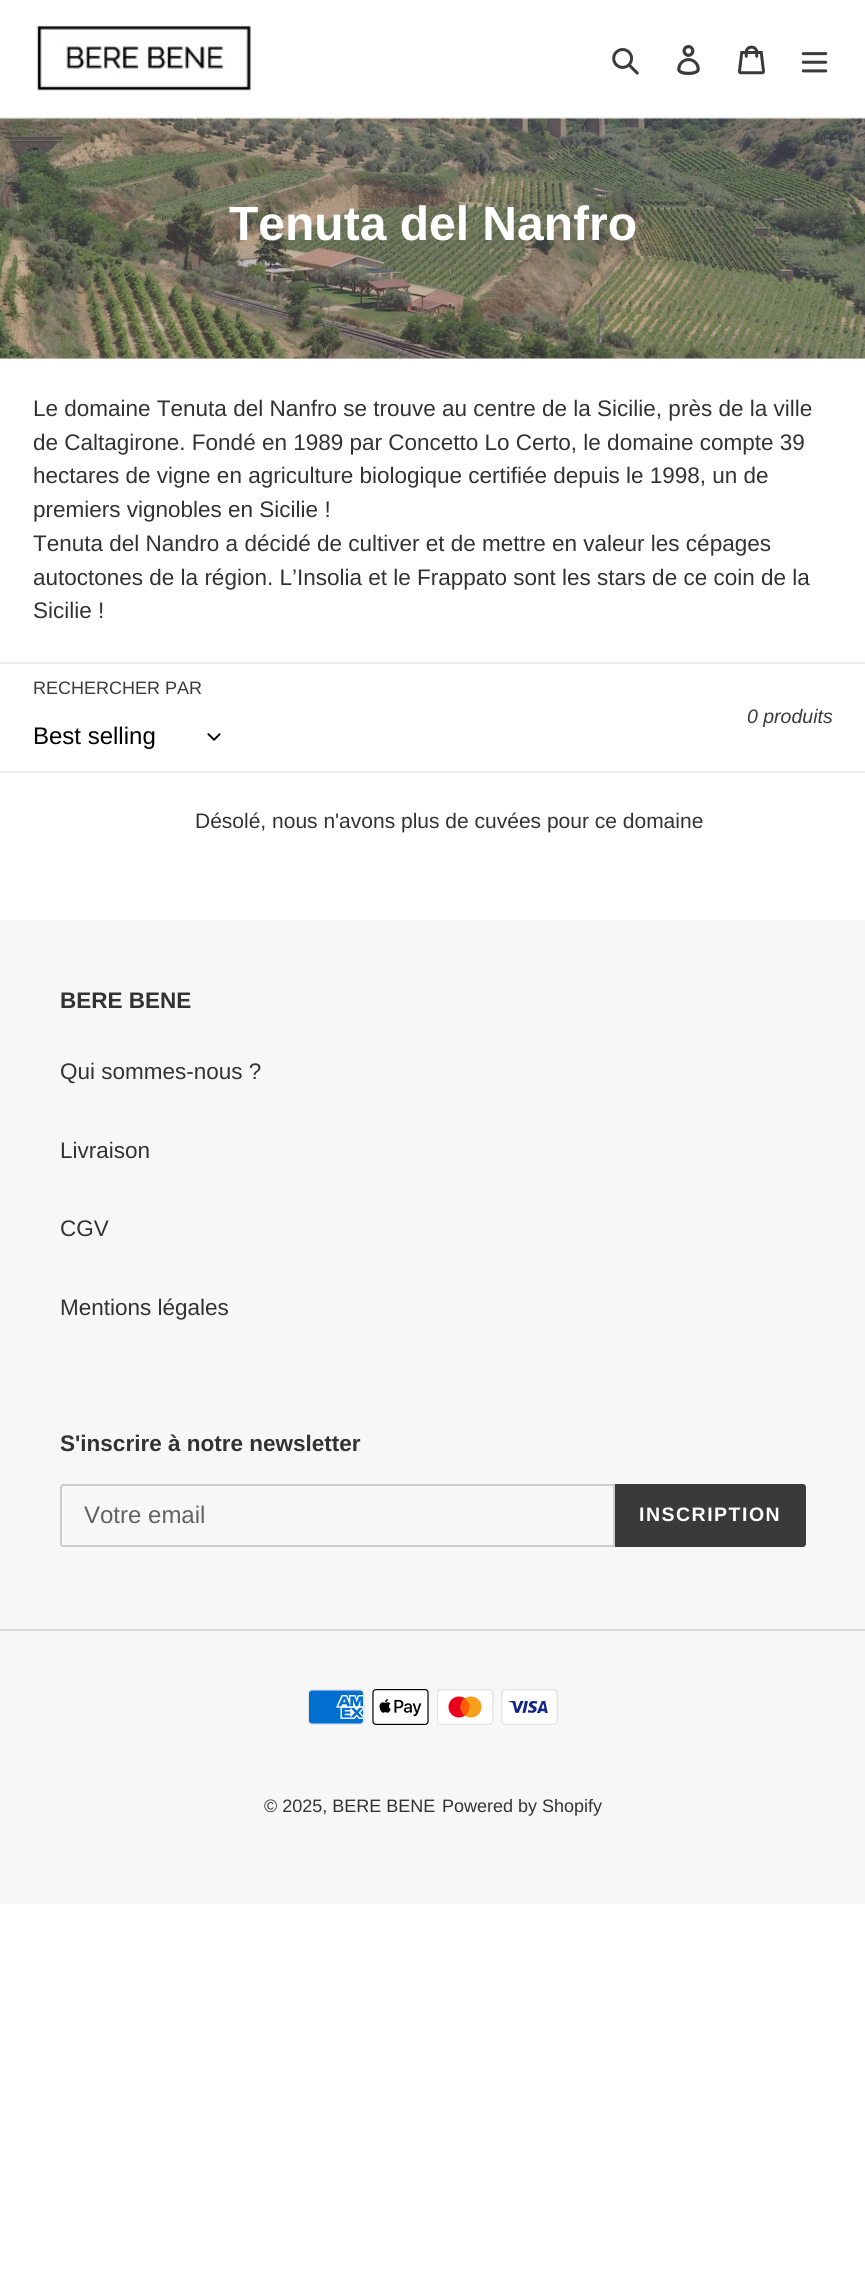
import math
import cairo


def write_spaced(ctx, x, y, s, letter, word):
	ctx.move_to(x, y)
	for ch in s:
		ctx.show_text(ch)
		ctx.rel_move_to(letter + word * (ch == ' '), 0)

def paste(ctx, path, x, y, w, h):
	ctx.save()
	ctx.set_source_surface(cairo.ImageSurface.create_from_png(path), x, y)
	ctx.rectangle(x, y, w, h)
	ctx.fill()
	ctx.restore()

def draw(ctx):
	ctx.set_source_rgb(1, 1, 1)
	ctx.paint()
	ctx.set_source_rgb(0.765, 0.737, 0.737)
	ctx.rectangle(0, 358, 865, 1)
	ctx.fill()
	ctx.set_source_rgb(0.922, 0.922, 0.922)
	ctx.rectangle(0, 117, 865, 2)
	ctx.fill()
	paste(ctx, 'media/1.png', 34, 25, 219, 66)
	paste(ctx, 'media/2.png', 612, 48, 27, 27)
	paste(ctx, 'media/3.png', 677, 45, 23, 30)
	paste(ctx, 'media/4.png', 738, 45, 27, 30)
	paste(ctx, 'media/5.png', 801, 52, 27, 21)
	paste(ctx, 'media/6.png', 0, 118, 865, 241)
	ctx.select_font_face('Liberation Sans', cairo.FONT_SLANT_NORMAL, cairo.FONT_WEIGHT_BOLD)
	ctx.set_font_size(48)
	ctx.set_source_rgb(1, 1, 1)
	ctx.move_to(229, 240)
	ctx.show_text('Tenuta del Nanfro')
	ctx.select_font_face('Liberation Sans')
	ctx.set_font_size(22.5)
	ctx.set_source_rgb(0.2, 0.196, 0.196)
	for x, y, s in [
		(33, 416, 'Le domaine Tenuta del Nanfro se trouve au centre de la Sicilie, près de la ville'),
		(33, 450, 'de Caltagirone. Fondé en 1989 par Concetto Lo Certo, le domaine compte 39'),
		(33, 483, 'hectares de vigne en agriculture biologique certifiée depuis le 1998, un de'),
		(33, 517, 'premiers vignobles en Sicilie !'),
		(33, 551, 'Tenuta del Nandro a décidé de cultiver et de mettre en valeur les cépages'),
		(33, 585, 'autoctones de la région. L’Insolia et le Frappato sont les stars de ce coin de la'),
		(33, 618, 'Sicilie !'),
	]:
		ctx.move_to(x, y)
		ctx.show_text(s)
	ctx.set_source_rgb(0.922, 0.922, 0.922)
	ctx.rectangle(0, 662, 865, 2)
	ctx.fill()
	ctx.rectangle(0, 771, 865, 2)
	ctx.fill()
	ctx.set_font_size(18)
	ctx.set_source_rgb(0.227, 0.227, 0.227)
	ctx.move_to(33, 694)
	ctx.show_text('RECHERCHER PAR')
	ctx.set_font_size(24)
	ctx.set_source_rgb(0, 0, 0)
	ctx.move_to(33, 744)
	ctx.show_text('Best selling')
	paste(ctx, 'media/7.png', 207, 733, 14, 8)
	ctx.select_font_face('Liberation Sans', cairo.FONT_SLANT_ITALIC)
	ctx.set_font_size(19.5)
	ctx.set_source_rgb(0.227, 0.227, 0.227)
	ctx.move_to(747, 723)
	ctx.show_text('0 produits')
	ctx.select_font_face('Liberation Sans')
	ctx.set_font_size(21)
	ctx.set_source_rgb(0.2, 0.196, 0.196)
	ctx.move_to(195, 828)
	ctx.show_text('Désolé, nous n\'avons plus de cuvées pour ce domaine')
	ctx.set_source_rgb(0.965, 0.965, 0.965)
	ctx.rectangle(0, 920, 865, 984)
	ctx.fill()
	ctx.select_font_face('Liberation Sans', cairo.FONT_SLANT_NORMAL, cairo.FONT_WEIGHT_BOLD)
	ctx.set_font_size(22.5)
	ctx.set_source_rgb(0.2, 0.196, 0.196)
	ctx.move_to(60, 1008)
	ctx.show_text('BERE BENE')
	ctx.select_font_face('Liberation Sans')
	for x, y, s in [
		(60, 1079, 'Qui sommes-nous ?'),
		(60, 1158, 'Livraison'),
		(60, 1236, 'CGV'),
		(60, 1315, 'Mentions légales'),
	]:
		ctx.move_to(x, y)
		ctx.show_text(s)
	ctx.select_font_face('Liberation Sans', cairo.FONT_SLANT_NORMAL, cairo.FONT_WEIGHT_BOLD)
	ctx.move_to(60, 1451)
	ctx.show_text('S\'inscrire à notre newsletter')
	ctx.new_path()
	ctx.move_to(63, 1485)
	ctx.line_to(614, 1485)
	ctx.line_to(614, 1546)
	ctx.line_to(63, 1546)
	ctx.curve_to(62, 1546, 61, 1545, 61, 1544)
	ctx.line_to(61, 1487)
	ctx.curve_to(61, 1486, 62, 1485, 63, 1485)
	ctx.close_path()
	ctx.set_source_rgb(0.8, 0.8, 0.8)
	ctx.stroke()
	ctx.select_font_face('Liberation Sans')
	ctx.set_font_size(24)
	ctx.set_source_rgb(0.384, 0.384, 0.384)
	ctx.move_to(84, 1523)
	ctx.show_text('Votre email')
	ctx.set_source_rgb(0.227, 0.227, 0.227)
	ctx.new_path()
	ctx.move_to(615, 1484)
	ctx.line_to(803, 1484)
	ctx.curve_to(804.5, 1484, 806, 1485.5, 806, 1487)
	ctx.line_to(806, 1544)
	ctx.curve_to(806, 1545.5, 804.5, 1547, 803, 1547)
	ctx.line_to(615, 1547)
	ctx.close_path()
	ctx.fill()
	ctx.select_font_face('Liberation Sans', cairo.FONT_SLANT_NORMAL, cairo.FONT_WEIGHT_BOLD)
	ctx.set_font_size(19.5)
	ctx.set_source_rgb(1, 1, 1)
	write_spaced(ctx, 639, 1521, 'INSCRIPTION', 1.5, 0)
	ctx.set_source_rgb(0.867, 0.867, 0.867)
	ctx.rectangle(0, 1629, 865, 2)
	ctx.fill()
	paste(ctx, 'media/8.png', 308, 1689, 57, 36)
	paste(ctx, 'media/9.png', 372, 1689, 57, 36)
	paste(ctx, 'media/10.png', 437, 1689, 57, 36)
	paste(ctx, 'media/11.png', 501, 1689, 57, 36)
	ctx.select_font_face('Liberation Sans')
	ctx.set_font_size(18)
	ctx.set_source_rgb(0.2, 0.196, 0.196)
	ctx.move_to(264, 1812)
	ctx.show_text('© 2025, BERE BENE')
	ctx.move_to(442, 1812)
	ctx.show_text('Powered by Shopify')


surface = cairo.ImageSurface(cairo.FORMAT_RGB24, 865, 2271)
ctx = cairo.Context(surface)
options = cairo.FontOptions()
options.set_hint_metrics(cairo.HINT_METRICS_OFF)
options.set_hint_style(cairo.HINT_STYLE_NONE)
ctx.set_font_options(options)
ctx.set_miter_limit(4)
draw(ctx)
surface.write_to_png('image.png')
